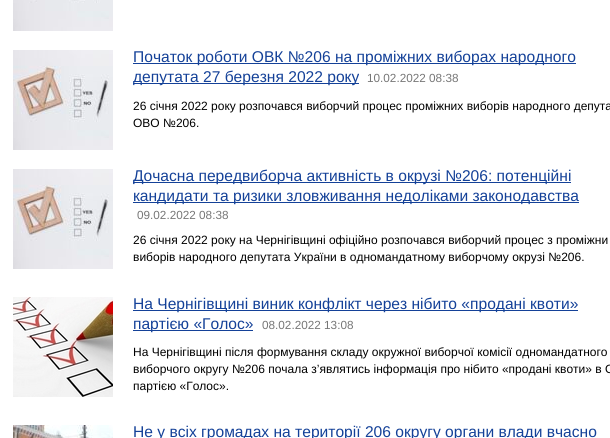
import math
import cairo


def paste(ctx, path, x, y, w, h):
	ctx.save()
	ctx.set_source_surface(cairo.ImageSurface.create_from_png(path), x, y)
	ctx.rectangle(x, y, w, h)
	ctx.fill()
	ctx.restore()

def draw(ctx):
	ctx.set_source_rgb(1, 1, 1)
	ctx.paint()
	paste(ctx, 'media/1.png', 13, 0, 100, 31)
	paste(ctx, 'media/2.png', 13, 50, 100, 100)
	ctx.set_source_rgb(0.082, 0.255, 0.596)
	ctx.rectangle(133, 63, 443, 1)
	ctx.fill()
	ctx.select_font_face('Liberation Sans')
	ctx.set_font_size(15.6)
	ctx.move_to(133, 62)
	ctx.show_text('Початок роботи ОВК №206 на проміжних виборах народного')
	ctx.rectangle(133, 83, 226, 1)
	ctx.fill()
	ctx.move_to(133, 82)
	ctx.show_text('депутата 27 березня 2022 року')
	ctx.set_font_size(11.75)
	ctx.set_source_rgb(0.467, 0.467, 0.467)
	ctx.move_to(367, 82)
	ctx.show_text('10.02.2022 08:38')
	ctx.set_font_size(12)
	ctx.set_source_rgb(0, 0, 0)
	ctx.move_to(133, 110)
	ctx.show_text('26 січня 2022 року розпочався виборчий процес проміжних виборів народного депута')
	ctx.move_to(133, 127)
	ctx.show_text('ОВО №206.')
	paste(ctx, 'media/2.png', 13, 169, 100, 100)
	ctx.set_source_rgb(0.082, 0.255, 0.596)
	ctx.rectangle(133, 182, 438, 1)
	ctx.fill()
	ctx.set_font_size(15.6)
	ctx.move_to(133, 181)
	ctx.show_text('Дочасна передвиборча активність в окрузі №206: потенційні')
	ctx.rectangle(133, 202, 446, 1)
	ctx.fill()
	ctx.move_to(133, 201)
	ctx.show_text('кандидати та ризики зловживання недоліками законодавства')
	ctx.set_font_size(11.75)
	ctx.set_source_rgb(0.467, 0.467, 0.467)
	ctx.move_to(137, 219)
	ctx.show_text('09.02.2022 08:38')
	ctx.set_font_size(12)
	ctx.set_source_rgb(0, 0, 0)
	ctx.move_to(133, 244)
	ctx.show_text('26 січня 2022 року на Чернігівщині офіційно розпочався виборчий процес з проміжни')
	ctx.move_to(133, 261)
	ctx.show_text('виборів народного депутата України в одномандатному виборчому окрузі №206.')
	paste(ctx, 'media/3.png', 13, 297, 100, 100)
	ctx.set_source_rgb(0.082, 0.255, 0.596)
	ctx.rectangle(133, 310, 445, 1)
	ctx.fill()
	ctx.set_font_size(15.6)
	ctx.move_to(133, 309)
	ctx.show_text('На Чернігівщині виник конфлікт через нібито «продані квоти»')
	ctx.rectangle(133, 330, 120, 1)
	ctx.fill()
	ctx.move_to(133, 329)
	ctx.show_text('партією «Голос»')
	ctx.set_font_size(11.75)
	ctx.set_source_rgb(0.467, 0.467, 0.467)
	ctx.move_to(262, 329)
	ctx.show_text('08.02.2022 13:08')
	ctx.set_font_size(12)
	ctx.set_source_rgb(0, 0, 0)
	for x, y, s in [
		(133, 356, 'На Чернігівщині після формування складу окружної виборчої комісії одномандатного'),
		(133, 373, 'виборчого округу №206 почала з’являтись інформація про нібито «продані квоти» в О'),
		(133, 390, 'партією «Голос».'),
	]:
		ctx.move_to(x, y)
		ctx.show_text(s)
	paste(ctx, 'media/4.png', 13, 425, 100, 13)
	ctx.set_font_size(15.6)
	ctx.set_source_rgb(0.082, 0.255, 0.596)
	ctx.move_to(133, 437)
	ctx.show_text('Не у всіх громадах на території 206 округу органи влади вчасно')


surface = cairo.ImageSurface(cairo.FORMAT_RGB24, 610, 438)
ctx = cairo.Context(surface)
options = cairo.FontOptions()
options.set_hint_metrics(cairo.HINT_METRICS_OFF)
options.set_hint_style(cairo.HINT_STYLE_NONE)
ctx.set_font_options(options)
ctx.set_miter_limit(4)
draw(ctx)
surface.write_to_png('image.png')
